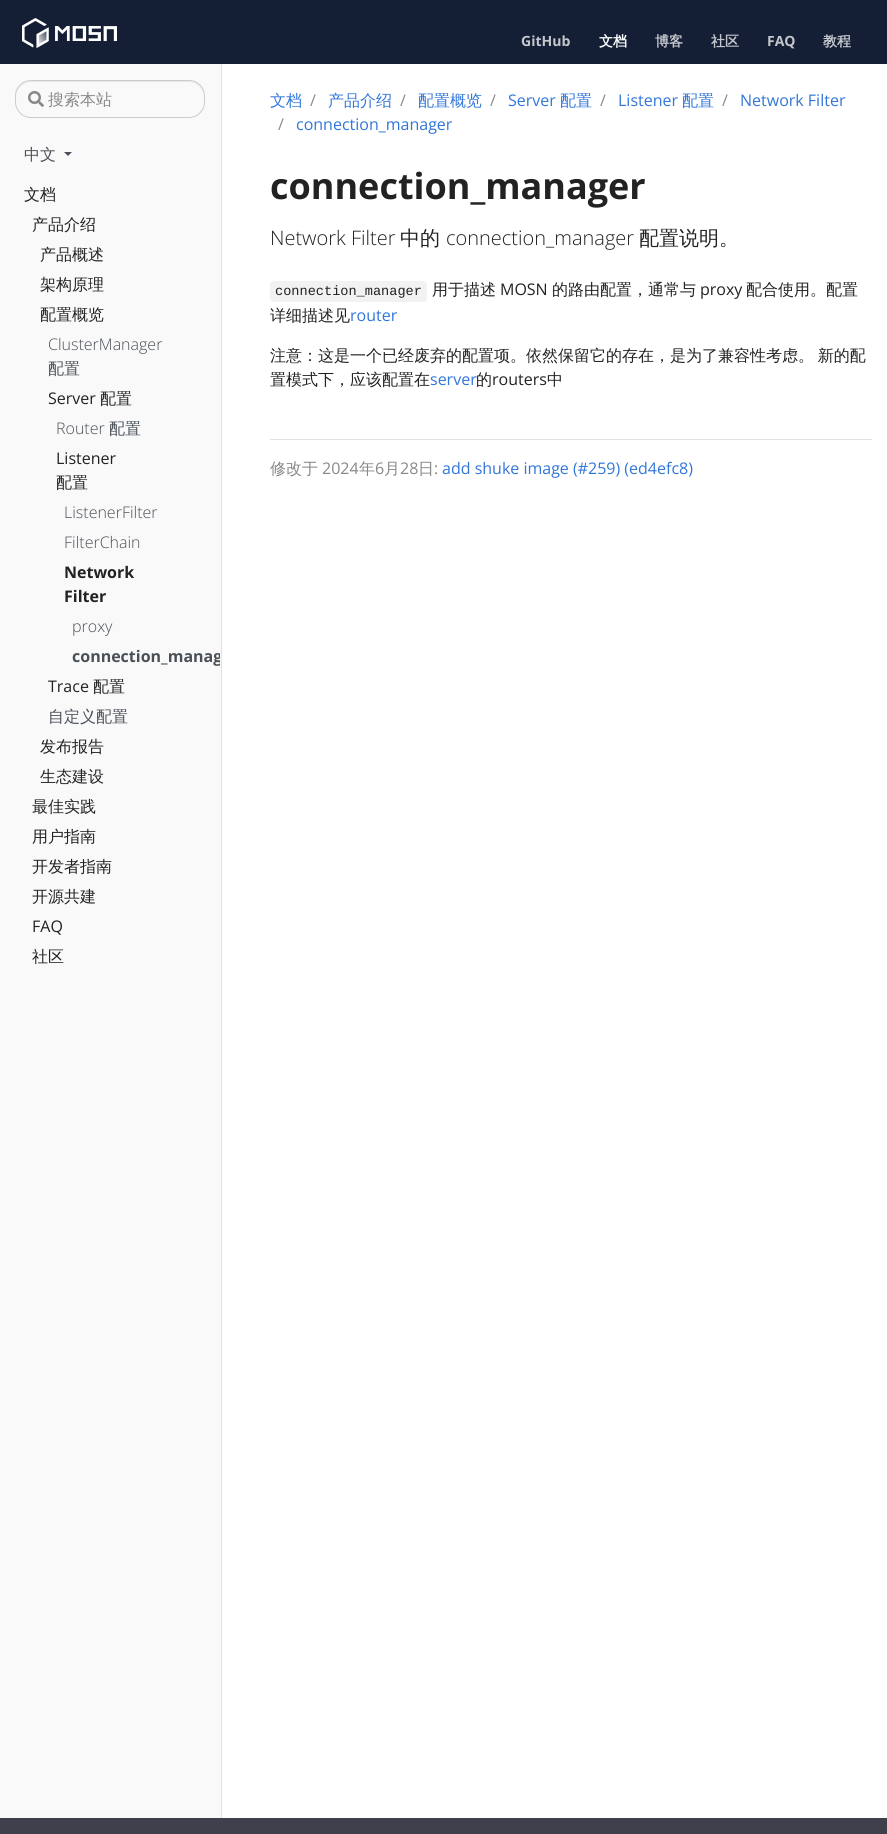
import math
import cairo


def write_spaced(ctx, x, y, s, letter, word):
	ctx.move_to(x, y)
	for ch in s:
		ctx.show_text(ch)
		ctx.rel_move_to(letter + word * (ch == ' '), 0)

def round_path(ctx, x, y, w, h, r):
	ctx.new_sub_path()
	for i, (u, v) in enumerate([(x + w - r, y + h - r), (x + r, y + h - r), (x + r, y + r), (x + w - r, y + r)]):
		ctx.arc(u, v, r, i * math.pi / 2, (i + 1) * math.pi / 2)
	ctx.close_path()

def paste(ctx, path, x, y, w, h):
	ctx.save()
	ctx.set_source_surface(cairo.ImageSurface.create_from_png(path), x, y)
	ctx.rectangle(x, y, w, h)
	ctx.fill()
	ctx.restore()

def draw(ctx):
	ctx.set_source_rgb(1, 1, 1)
	ctx.paint()
	ctx.set_source_rgb(0.082, 0.122, 0.208)
	ctx.rectangle(0, 0, 887, 64)
	ctx.fill()
	paste(ctx, 'media/1.png', 22, 18, 95, 30)
	ctx.select_font_face('Open Sans', cairo.FONT_SLANT_NORMAL, cairo.FONT_WEIGHT_BOLD)
	ctx.set_font_size(14)
	ctx.set_source_rgb(0.773, 0.78, 0.804)
	ctx.move_to(521, 46)
	ctx.show_text('GitHub')
	ctx.select_font_face('WenQuanYi Zen Hei', cairo.FONT_SLANT_NORMAL, cairo.FONT_WEIGHT_BOLD)
	ctx.set_source_rgb(1, 1, 1)
	ctx.move_to(599, 46)
	ctx.show_text('文档')
	ctx.set_source_rgb(0.773, 0.78, 0.804)
	ctx.move_to(655, 46)
	ctx.show_text('博客')
	ctx.move_to(711, 46)
	ctx.show_text('社区')
	ctx.select_font_face('Open Sans', cairo.FONT_SLANT_NORMAL, cairo.FONT_WEIGHT_BOLD)
	ctx.move_to(767, 46)
	ctx.show_text('FAQ')
	ctx.select_font_face('WenQuanYi Zen Hei', cairo.FONT_SLANT_NORMAL, cairo.FONT_WEIGHT_BOLD)
	ctx.move_to(823, 46)
	ctx.show_text('教程')
	ctx.set_source_rgb(0.976, 0.976, 0.98)
	ctx.rectangle(0, 64, 221, 1754)
	ctx.fill()
	ctx.set_source_rgb(0.871, 0.886, 0.902)
	ctx.rectangle(221, 64, 1, 1754)
	ctx.fill()
	ctx.set_source_rgb(0.902, 0.902, 0.906)
	ctx.new_path()
	ctx.move_to(31, 82)
	ctx.line_to(189, 82)
	ctx.curve_to(197, 82, 204, 89, 204, 97)
	ctx.curve_to(204, 75, 176, 81, 163, 81)
	ctx.line_to(57, 81)
	ctx.curve_to(44, 81, 16, 75, 16, 97)
	ctx.curve_to(16, 89, 23, 82, 31, 82)
	ctx.close_path()
	ctx.fill()
	round_path(ctx, 15.5, 80.5, 189, 37, 15.5)
	ctx.set_source_rgb(0.8, 0.8, 0.8)
	ctx.set_line_width(1)
	ctx.stroke()
	paste(ctx, 'media/2.png', 28, 91, 16, 16)
	ctx.select_font_face('WenQuanYi Zen Hei Medium')
	ctx.set_font_size(16)
	ctx.set_source_rgb(0.533, 0.533, 0.533)
	ctx.move_to(48, 105)
	ctx.show_text('搜索本站')
	ctx.set_source_rgb(0.286, 0.314, 0.341)
	ctx.move_to(24, 160)
	ctx.show_text('中文')
	ctx.new_path()
	ctx.move_to(64, 152)
	ctx.line_to(72, 152)
	ctx.line_to(68, 156)
	ctx.close_path()
	ctx.fill()
	ctx.set_source_rgb(0.133, 0.133, 0.133)
	for x, y, s in [
		(24, 200, '文档'),
		(32, 230, '产品介绍'),
		(40, 260, '产品概述'),
		(40, 290, '架构原理'),
		(40, 320, '配置概览'),
	]:
		ctx.move_to(x, y)
		ctx.show_text(s)
	ctx.select_font_face('Open Sans Light')
	ctx.set_source_rgb(0.286, 0.314, 0.341)
	ctx.move_to(48, 350)
	ctx.show_text('ClusterManager')
	ctx.select_font_face('WenQuanYi Zen Hei Medium')
	ctx.move_to(48, 374)
	ctx.show_text('配置')
	ctx.select_font_face('Open Sans')
	ctx.set_source_rgb(0.133, 0.133, 0.133)
	ctx.move_to(48, 404)
	ctx.show_text('Server')
	ctx.select_font_face('WenQuanYi Zen Hei Medium')
	ctx.move_to(100, 404)
	ctx.show_text('配置')
	ctx.select_font_face('Open Sans Light')
	ctx.set_source_rgb(0.286, 0.314, 0.341)
	ctx.move_to(56, 434)
	ctx.show_text('Router')
	ctx.select_font_face('WenQuanYi Zen Hei Medium')
	ctx.move_to(109, 434)
	ctx.show_text('配置')
	ctx.select_font_face('Open Sans')
	ctx.set_source_rgb(0.133, 0.133, 0.133)
	ctx.move_to(56, 464)
	ctx.show_text('Listener')
	ctx.select_font_face('WenQuanYi Zen Hei Medium')
	ctx.move_to(56, 488)
	ctx.show_text('配置')
	ctx.select_font_face('Open Sans Light')
	ctx.set_source_rgb(0.286, 0.314, 0.341)
	ctx.move_to(64, 518)
	ctx.show_text('ListenerFilter')
	ctx.move_to(64, 548)
	ctx.show_text('FilterChain')
	ctx.select_font_face('Open Sans', cairo.FONT_SLANT_NORMAL, cairo.FONT_WEIGHT_BOLD)
	ctx.set_source_rgb(0.133, 0.133, 0.133)
	ctx.move_to(64, 578)
	ctx.show_text('Network')
	ctx.move_to(64, 602)
	ctx.show_text('Filter')
	ctx.select_font_face('Open Sans Light')
	ctx.set_source_rgb(0.286, 0.314, 0.341)
	ctx.move_to(72, 632)
	ctx.show_text('proxy')
	ctx.save()
	ctx.rectangle(0, 134, 220, 856)
	ctx.clip()
	ctx.select_font_face('Open Sans', cairo.FONT_SLANT_NORMAL, cairo.FONT_WEIGHT_BOLD)
	ctx.move_to(72, 662)
	ctx.show_text('connection_manag')
	ctx.restore()
	ctx.select_font_face('Open Sans')
	ctx.set_source_rgb(0.133, 0.133, 0.133)
	ctx.move_to(48, 692)
	ctx.show_text('Trace')
	ctx.select_font_face('WenQuanYi Zen Hei Medium')
	ctx.move_to(93, 692)
	ctx.show_text('配置')
	ctx.set_source_rgb(0.286, 0.314, 0.341)
	ctx.move_to(48, 722)
	ctx.show_text('自定义配置')
	ctx.set_source_rgb(0.133, 0.133, 0.133)
	for x, y, s in [
		(40, 752, '发布报告'),
		(40, 782, '生态建设'),
		(32, 812, '最佳实践'),
		(32, 842, '用户指南'),
		(32, 872, '开发者指南'),
		(32, 902, '开源共建'),
	]:
		ctx.move_to(x, y)
		ctx.show_text(s)
	ctx.select_font_face('Open Sans')
	ctx.move_to(32, 932)
	ctx.show_text('FAQ')
	ctx.select_font_face('WenQuanYi Zen Hei Medium')
	ctx.move_to(32, 962)
	ctx.show_text('社区')
	ctx.set_source_rgb(0.192, 0.463, 0.851)
	ctx.move_to(270, 106)
	ctx.show_text('文档')
	ctx.select_font_face('Open Sans')
	ctx.set_source_rgb(0.533, 0.533, 0.533)
	ctx.move_to(310, 106)
	ctx.show_text('/')
	ctx.select_font_face('WenQuanYi Zen Hei Medium')
	ctx.set_source_rgb(0.192, 0.463, 0.851)
	ctx.move_to(328, 106)
	ctx.show_text('产品介绍')
	ctx.select_font_face('Open Sans')
	ctx.set_source_rgb(0.533, 0.533, 0.533)
	ctx.move_to(400, 106)
	ctx.show_text('/')
	ctx.select_font_face('WenQuanYi Zen Hei Medium')
	ctx.set_source_rgb(0.192, 0.463, 0.851)
	ctx.move_to(418, 106)
	ctx.show_text('配置概览')
	ctx.select_font_face('Open Sans')
	ctx.set_source_rgb(0.533, 0.533, 0.533)
	ctx.move_to(490, 106)
	ctx.show_text('/')
	ctx.set_source_rgb(0.192, 0.463, 0.851)
	ctx.move_to(508, 106)
	ctx.show_text('Server')
	ctx.select_font_face('WenQuanYi Zen Hei Medium')
	ctx.move_to(560, 106)
	ctx.show_text('配置')
	ctx.select_font_face('Open Sans')
	ctx.set_source_rgb(0.533, 0.533, 0.533)
	ctx.move_to(600, 106)
	ctx.show_text('/')
	ctx.set_source_rgb(0.192, 0.463, 0.851)
	ctx.move_to(618, 106)
	ctx.show_text('Listener')
	ctx.select_font_face('WenQuanYi Zen Hei Medium')
	ctx.move_to(682, 106)
	ctx.show_text('配置')
	ctx.select_font_face('Open Sans')
	ctx.set_source_rgb(0.533, 0.533, 0.533)
	ctx.move_to(722, 106)
	ctx.show_text('/')
	ctx.set_source_rgb(0.192, 0.463, 0.851)
	ctx.move_to(740, 106)
	ctx.show_text('Network Filter')
	ctx.set_source_rgb(0.533, 0.533, 0.533)
	ctx.move_to(278, 130)
	ctx.show_text('/')
	ctx.set_source_rgb(0.192, 0.463, 0.851)
	ctx.move_to(296, 130)
	ctx.show_text('connection_manager')
	ctx.select_font_face('Open Sans', cairo.FONT_SLANT_NORMAL, cairo.FONT_WEIGHT_BOLD)
	ctx.set_font_size(36)
	ctx.set_source_rgb(0.133, 0.133, 0.133)
	ctx.move_to(270, 199)
	ctx.show_text('connection_manager')
	ctx.select_font_face('Open Sans Light')
	ctx.set_font_size(20)
	ctx.move_to(270, 245)
	ctx.show_text('Network Filter')
	ctx.select_font_face('WenQuanYi Zen Hei Medium')
	ctx.move_to(400, 245)
	ctx.show_text('中的')
	ctx.select_font_face('Open Sans Light')
	ctx.move_to(446, 245)
	ctx.show_text('connection_manager')
	ctx.select_font_face('WenQuanYi Zen Hei Medium')
	ctx.move_to(639, 245)
	ctx.show_text('配置说明。')
	ctx.set_source_rgb(0.949, 0.949, 0.949)
	round_path(ctx, 270, 281, 157, 21, 4)
	ctx.fill()
	ctx.select_font_face('Liberation Mono')
	ctx.set_font_size(13.6)
	ctx.set_source_rgb(0.133, 0.133, 0.133)
	ctx.move_to(275, 295)
	ctx.show_text('connection_manager')
	ctx.select_font_face('WenQuanYi Zen Hei Medium')
	ctx.set_font_size(16)
	ctx.move_to(432, 295)
	ctx.show_text('用于描述')
	ctx.select_font_face('Open Sans')
	ctx.move_to(500, 295)
	ctx.show_text('MOSN')
	ctx.select_font_face('WenQuanYi Zen Hei Medium')
	ctx.move_to(552, 295)
	ctx.show_text('的路由配置，通常与')
	ctx.select_font_face('Open Sans')
	ctx.move_to(700, 295)
	ctx.show_text('proxy')
	ctx.select_font_face('WenQuanYi Zen Hei Medium')
	ctx.move_to(746, 295)
	ctx.show_text('配合使用。配置')
	ctx.move_to(270, 321)
	ctx.show_text('详细描述见')
	ctx.select_font_face('Open Sans')
	ctx.set_source_rgb(0.192, 0.463, 0.851)
	ctx.move_to(350, 321)
	ctx.show_text('router')
	ctx.select_font_face('WenQuanYi Zen Hei Medium')
	ctx.set_source_rgb(0.133, 0.133, 0.133)
	write_spaced(ctx, 270, 361, '注意：这是一个已经废弃的配置项。依然保留它的存在，是为了兼容性考虑。 新的配', 0, -1)
	ctx.move_to(270, 385)
	ctx.show_text('置模式下，应该配置在')
	ctx.select_font_face('Open Sans')
	ctx.set_source_rgb(0.192, 0.463, 0.851)
	ctx.move_to(430, 385)
	ctx.show_text('server')
	ctx.select_font_face('WenQuanYi Zen Hei Medium')
	ctx.set_source_rgb(0.133, 0.133, 0.133)
	ctx.move_to(476, 385)
	ctx.show_text('的')
	ctx.select_font_face('Open Sans')
	ctx.move_to(492, 385)
	ctx.show_text('routers')
	ctx.select_font_face('WenQuanYi Zen Hei Medium')
	ctx.move_to(547, 385)
	ctx.show_text('中')
	ctx.set_source_rgb(0.871, 0.886, 0.902)
	ctx.rectangle(270, 439, 602, 1)
	ctx.fill()
	ctx.set_source_rgb(0.533, 0.533, 0.533)
	ctx.move_to(270, 474)
	ctx.show_text('修改于')
	ctx.select_font_face('Open Sans')
	ctx.move_to(322, 474)
	ctx.show_text('2024')
	ctx.select_font_face('WenQuanYi Zen Hei Medium')
	ctx.move_to(359, 474)
	ctx.show_text('年')
	ctx.select_font_face('Open Sans')
	ctx.move_to(375, 474)
	ctx.show_text('6')
	ctx.select_font_face('WenQuanYi Zen Hei Medium')
	ctx.move_to(384, 474)
	ctx.show_text('月')
	ctx.select_font_face('Open Sans')
	ctx.move_to(400, 474)
	ctx.show_text('28')
	ctx.select_font_face('WenQuanYi Zen Hei Medium')
	ctx.move_to(418, 474)
	ctx.show_text('日')
	ctx.select_font_face('Open Sans')
	ctx.move_to(434, 474)
	ctx.show_text(':')
	ctx.set_source_rgb(0.192, 0.463, 0.851)
	ctx.move_to(442, 474)
	ctx.show_text('add shuke image (#259) (ed4efc8)')
	ctx.set_source_rgb(0.251, 0.247, 0.298)
	ctx.rectangle(0, 1818, 887, 16)
	ctx.fill()


surface = cairo.ImageSurface(cairo.FORMAT_RGB24, 887, 1834)
ctx = cairo.Context(surface)
options = cairo.FontOptions()
options.set_hint_metrics(cairo.HINT_METRICS_OFF)
options.set_hint_style(cairo.HINT_STYLE_NONE)
ctx.set_font_options(options)
ctx.set_miter_limit(4)
draw(ctx)
surface.write_to_png('image.png')
